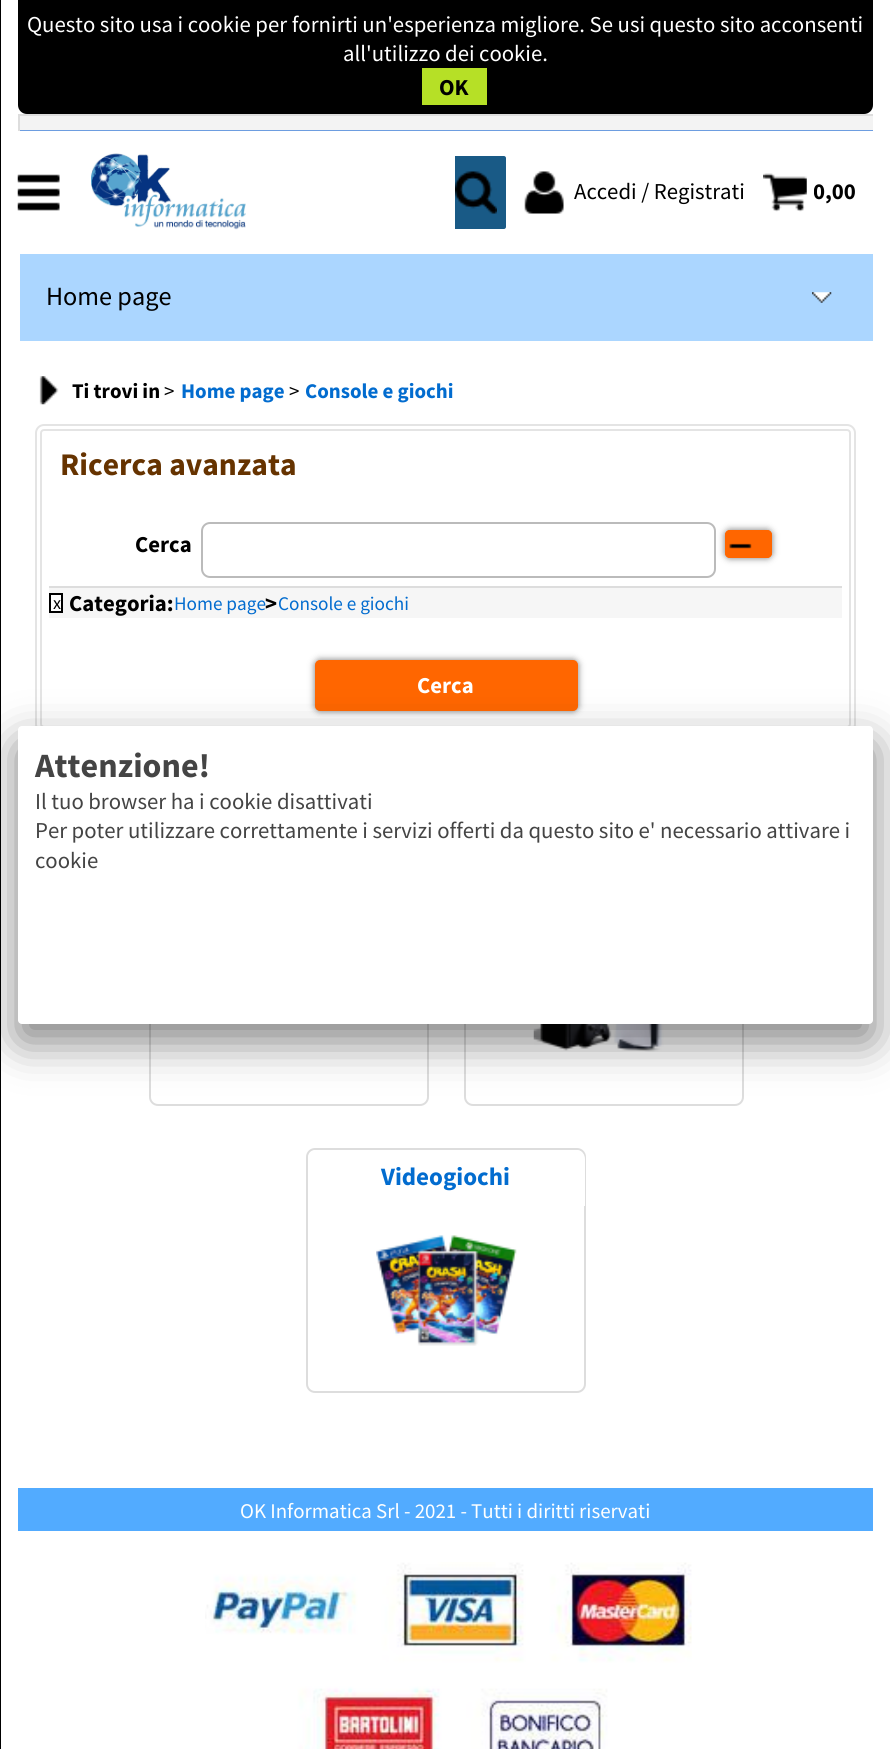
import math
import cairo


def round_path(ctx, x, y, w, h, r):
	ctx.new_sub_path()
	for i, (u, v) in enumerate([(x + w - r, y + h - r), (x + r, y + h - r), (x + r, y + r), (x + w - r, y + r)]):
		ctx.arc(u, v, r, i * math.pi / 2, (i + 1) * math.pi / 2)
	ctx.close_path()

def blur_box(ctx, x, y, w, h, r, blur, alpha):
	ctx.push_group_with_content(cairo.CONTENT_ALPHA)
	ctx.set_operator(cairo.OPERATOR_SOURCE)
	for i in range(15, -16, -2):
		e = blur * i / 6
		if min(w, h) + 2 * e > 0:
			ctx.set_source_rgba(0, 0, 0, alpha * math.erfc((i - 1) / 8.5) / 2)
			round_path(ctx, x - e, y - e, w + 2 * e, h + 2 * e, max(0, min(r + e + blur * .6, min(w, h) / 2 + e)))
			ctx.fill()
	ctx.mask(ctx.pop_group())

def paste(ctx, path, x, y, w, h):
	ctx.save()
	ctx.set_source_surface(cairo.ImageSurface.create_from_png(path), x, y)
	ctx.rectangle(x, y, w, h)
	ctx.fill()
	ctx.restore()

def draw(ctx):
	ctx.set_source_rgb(1, 1, 1)
	ctx.paint()
	ctx.set_source_rgb(0, 0, 0)
	ctx.rectangle(0, 0, 1, 1749)
	ctx.fill()
	ctx.new_path()
	ctx.move_to(18, 0)
	ctx.line_to(873, 0)
	ctx.line_to(873, 105)
	ctx.curve_to(873, 110, 869, 114, 864, 114)
	ctx.line_to(27, 114)
	ctx.curve_to(22, 114, 18, 110, 18, 105)
	ctx.close_path()
	ctx.fill()
	ctx.select_font_face('Source Sans Pro')
	ctx.set_font_size(22.75)
	ctx.set_source_rgb(1, 1, 1)
	ctx.move_to(27, 32)
	ctx.show_text('Questo sito usa i cookie per fornirti un\'esperienza migliore. Se usi questo sito acconsenti')
	ctx.move_to(343, 61)
	ctx.show_text('all\'utilizzo dei cookie.')
	ctx.set_source_rgb(0.714, 0.878, 0.149)
	ctx.rectangle(422, 68, 65, 37)
	ctx.fill()
	ctx.select_font_face('Source Sans Pro', cairo.FONT_SLANT_NORMAL, cairo.FONT_WEIGHT_BOLD)
	ctx.set_source_rgb(0, 0, 0)
	ctx.move_to(439, 95)
	ctx.show_text('OK')
	ctx.set_source_rgb(0.953, 0.953, 0.953)
	ctx.rectangle(20, 116, 853, 14)
	ctx.fill()
	ctx.set_source_rgb(0.867, 0.867, 0.867)
	ctx.rectangle(18, 114, 855, 2)
	ctx.fill()
	ctx.set_source_rgb(0.427, 0.616, 0.878)
	ctx.rectangle(18, 130, 855, 1)
	ctx.fill()
	ctx.set_source_rgb(0.867, 0.867, 0.867)
	ctx.rectangle(18, 114, 2, 17)
	ctx.fill()
	paste(ctx, 'media/1.png', 17, 174, 43, 37)
	paste(ctx, 'media/2.png', 91, 153, 155, 77)
	ctx.set_source_rgb(0.098, 0.353, 0.525)
	ctx.new_path()
	ctx.move_to(455, 156)
	ctx.line_to(504, 156)
	ctx.curve_to(505, 156, 506, 157, 506, 158)
	ctx.line_to(506, 227)
	ctx.curve_to(506, 228, 505, 229, 504, 229)
	ctx.line_to(455, 229)
	ctx.close_path()
	ctx.fill()
	paste(ctx, 'media/3.png', 455, 171, 42, 43)
	paste(ctx, 'media/4.png', 524, 171, 40, 43)
	ctx.select_font_face('Source Sans Pro')
	ctx.set_source_rgb(0, 0, 0)
	ctx.move_to(574, 199)
	ctx.show_text('Accedi / Registrati')
	paste(ctx, 'media/5.png', 763, 173, 44, 39)
	ctx.save()
	ctx.rectangle(814, 161, 42, 63)
	ctx.clip()
	ctx.select_font_face('Source Sans Pro', cairo.FONT_SLANT_NORMAL, cairo.FONT_WEIGHT_BOLD)
	ctx.move_to(813, 199)
	ctx.show_text('0,00')
	ctx.restore()
	ctx.set_source_rgb(0.671, 0.839, 1)
	ctx.rectangle(20, 254, 853, 87)
	ctx.fill()
	paste(ctx, 'media/6.png', 812, 292, 20, 11)
	ctx.set_font_size(26.25)
	ctx.set_source_rgb(0, 0, 0)
	ctx.move_to(46, 305)
	ctx.show_text('Home page')
	paste(ctx, 'media/7.png', 39, 376, 20, 29)
	ctx.select_font_face('Source Sans Pro', cairo.FONT_SLANT_NORMAL, cairo.FONT_WEIGHT_BOLD)
	ctx.set_font_size(20.9)
	ctx.move_to(72, 398)
	ctx.show_text('Ti trovi in')
	ctx.select_font_face('Source Sans Pro')
	ctx.move_to(164, 398)
	ctx.show_text('>')
	ctx.select_font_face('Source Sans Pro', cairo.FONT_SLANT_NORMAL, cairo.FONT_WEIGHT_BOLD)
	ctx.set_source_rgb(0.008, 0.424, 0.812)
	ctx.move_to(181, 398)
	ctx.show_text('Home page')
	ctx.select_font_face('Source Sans Pro')
	ctx.set_source_rgb(0, 0, 0)
	ctx.move_to(289, 398)
	ctx.show_text('>')
	ctx.select_font_face('Source Sans Pro', cairo.FONT_SLANT_NORMAL, cairo.FONT_WEIGHT_BOLD)
	ctx.set_source_rgb(0.008, 0.424, 0.812)
	ctx.move_to(305, 398)
	ctx.show_text('Console e giochi')
	round_path(ctx, 36, 425, 819, 307, 8)
	ctx.set_source_rgb(0.894, 0.894, 0.894)
	ctx.stroke()
	round_path(ctx, 41, 430, 809, 297, 3)
	ctx.stroke()
	ctx.set_font_size(31.5)
	ctx.set_source_rgb(0.4, 0.2, 0)
	ctx.move_to(60, 475)
	ctx.show_text('Ricerca avanzata')
	ctx.set_font_size(22.75)
	ctx.set_source_rgb(0, 0, 0)
	ctx.move_to(135, 552)
	ctx.show_text('Cerca')
	round_path(ctx, 202, 523, 513, 54, 8)
	ctx.set_source_rgb(0.733, 0.733, 0.733)
	ctx.stroke()
	ctx.set_source_rgb(0.467, 0.467, 0.467)
	blur_box(ctx, 725, 530, 47, 28, 5, 3.5, 1)
	ctx.set_source_rgb(1, 0.4, 0)
	round_path(ctx, 725, 530, 47, 28, 5)
	ctx.fill()
	paste(ctx, 'media/8.png', 729, 543, 23, 6)
	round_path(ctx, 726, 531, 45, 26, 4)
	ctx.stroke()
	ctx.set_source_rgb(0.867, 0.867, 0.867)
	ctx.rectangle(49, 586, 793, 2)
	ctx.fill()
	ctx.set_source_rgb(0.961, 0.961, 0.961)
	ctx.rectangle(49, 588, 793, 30)
	ctx.fill()
	ctx.set_source_rgb(1, 1, 1)
	ctx.rectangle(50, 594, 12, 18)
	ctx.fill_preserve()
	ctx.set_source_rgb(0, 0, 0)
	ctx.stroke()
	ctx.select_font_face('Source Sans Pro')
	ctx.set_font_size(18)
	ctx.move_to(53, 609)
	ctx.show_text('x')
	ctx.select_font_face('Source Sans Pro', cairo.FONT_SLANT_NORMAL, cairo.FONT_WEIGHT_BOLD)
	ctx.set_font_size(22.75)
	ctx.move_to(69, 611)
	ctx.show_text('Categoria:')
	ctx.select_font_face('Source Sans Pro')
	ctx.set_font_size(19.25)
	ctx.set_source_rgb(0.008, 0.424, 0.812)
	ctx.move_to(174, 610)
	ctx.show_text('Home page')
	ctx.select_font_face('Source Sans Pro', cairo.FONT_SLANT_NORMAL, cairo.FONT_WEIGHT_BOLD)
	ctx.set_font_size(22.75)
	ctx.set_source_rgb(0, 0, 0)
	ctx.move_to(265, 611)
	ctx.show_text('>')
	ctx.select_font_face('Source Sans Pro')
	ctx.set_font_size(19.25)
	ctx.set_source_rgb(0.008, 0.424, 0.812)
	ctx.move_to(278, 610)
	ctx.show_text('Console e giochi')
	ctx.set_source_rgb(0.467, 0.467, 0.467)
	blur_box(ctx, 315, 660, 263, 51, 5, 3.5, 1)
	ctx.set_source_rgb(1, 0.4, 0)
	round_path(ctx, 316, 661, 261, 49, 4)
	ctx.fill_preserve()
	ctx.stroke()
	ctx.select_font_face('Source Sans Pro', cairo.FONT_SLANT_NORMAL, cairo.FONT_WEIGHT_BOLD)
	ctx.set_font_size(22.75)
	ctx.set_source_rgb(1, 1, 1)
	ctx.move_to(417, 693)
	ctx.show_text('Cerca')
	round_path(ctx, 150, 862, 278, 243, 8)
	ctx.set_source_rgb(0.867, 0.867, 0.867)
	ctx.stroke()
	round_path(ctx, 465, 862, 278, 243, 8)
	ctx.stroke()
	paste(ctx, 'media/9.png', 533, 1024, 133, 28)
	round_path(ctx, 307, 1149, 278, 243, 8)
	ctx.stroke()
	ctx.set_source_rgb(1, 1, 1)
	ctx.new_path()
	ctx.move_to(317, 1150)
	ctx.line_to(576, 1150)
	ctx.curve_to(581, 1150, 585, 1154, 585, 1159)
	ctx.line_to(585, 1206)
	ctx.line_to(308, 1206)
	ctx.line_to(308, 1159)
	ctx.curve_to(308, 1154, 312, 1150, 317, 1150)
	ctx.close_path()
	ctx.fill()
	ctx.set_font_size(25)
	ctx.set_source_rgb(0.008, 0.424, 0.812)
	ctx.move_to(381, 1185)
	ctx.show_text('Videogiochi')
	paste(ctx, 'media/10.png', 376, 1235, 141, 111)
	ctx.set_source_rgb(0, 0, 0)
	blur_box(ctx, 18, 744, 855, 297, 4, 22, 0.5)
	ctx.set_source_rgb(1, 1, 1)
	round_path(ctx, 18, 726, 855, 298, 4)
	ctx.fill()
	ctx.set_font_size(34)
	ctx.set_source_rgb(0.267, 0.267, 0.267)
	ctx.move_to(35, 777)
	ctx.show_text('Attenzione!')
	ctx.select_font_face('Source Sans Pro')
	ctx.set_font_size(22.75)
	for x, y, s in [
		(35, 809, 'Il tuo browser ha i cookie disattivati'),
		(35, 838, 'Per poter utilizzare correttamente i servizi offerti da questo sito e\' necessario attivare i'),
		(35, 868, 'cookie'),
	]:
		ctx.move_to(x, y)
		ctx.show_text(s)
	ctx.set_source_rgb(0.322, 0.671, 1)
	ctx.rectangle(18, 1488, 855, 43)
	ctx.fill()
	ctx.set_font_size(20.9)
	ctx.set_source_rgb(1, 1, 1)
	ctx.move_to(240, 1518)
	ctx.show_text('OK Informatica Srl - 2021 - Tutti i diritti riservati')
	paste(ctx, 'media/11.png', 205, 1562, 487, 187)


surface = cairo.ImageSurface(cairo.FORMAT_RGB24, 890, 1749)
ctx = cairo.Context(surface)
options = cairo.FontOptions()
options.set_hint_metrics(cairo.HINT_METRICS_OFF)
options.set_hint_style(cairo.HINT_STYLE_NONE)
ctx.set_font_options(options)
ctx.set_miter_limit(4)
draw(ctx)
surface.write_to_png('image.png')
